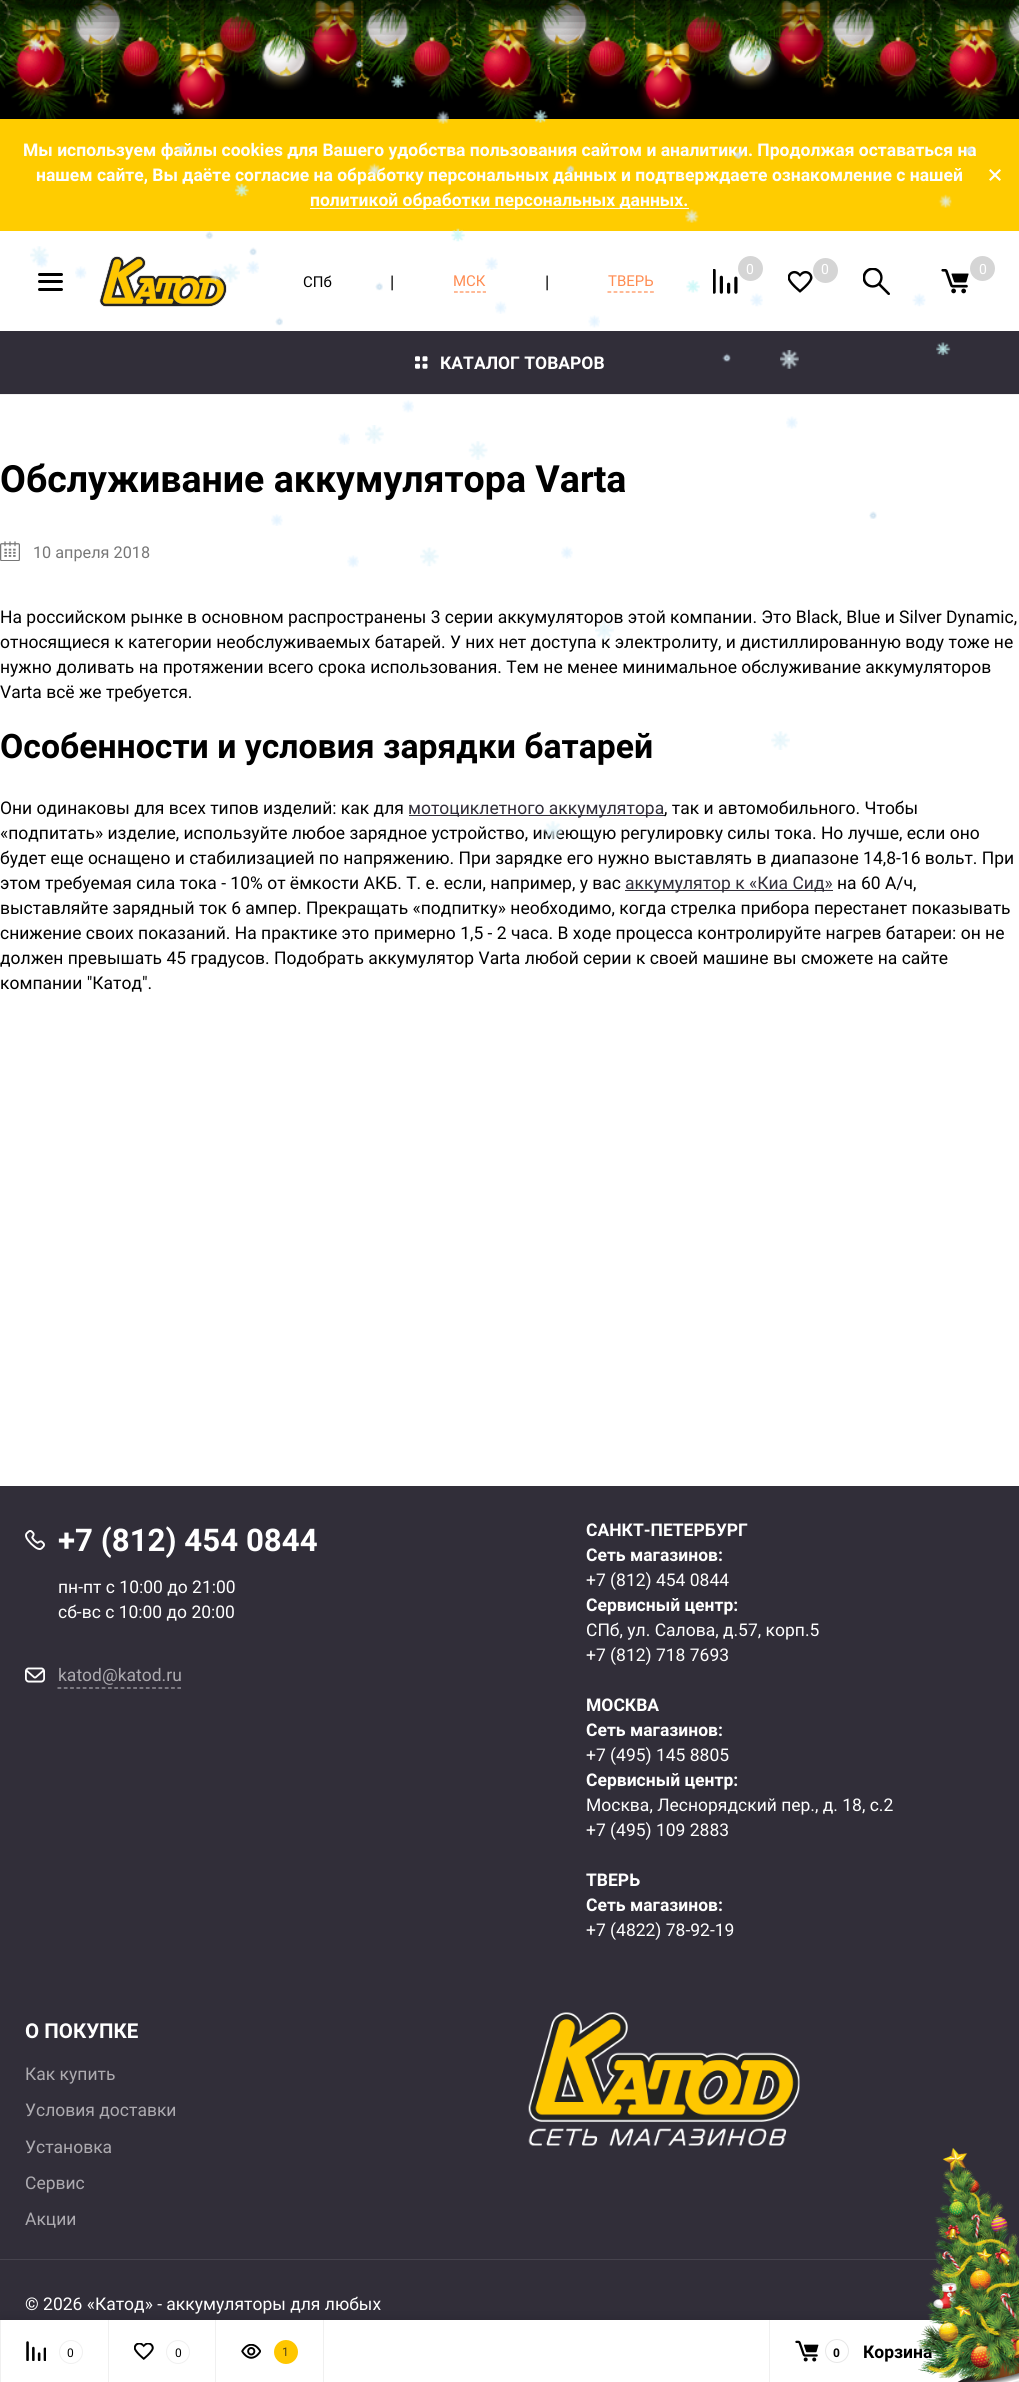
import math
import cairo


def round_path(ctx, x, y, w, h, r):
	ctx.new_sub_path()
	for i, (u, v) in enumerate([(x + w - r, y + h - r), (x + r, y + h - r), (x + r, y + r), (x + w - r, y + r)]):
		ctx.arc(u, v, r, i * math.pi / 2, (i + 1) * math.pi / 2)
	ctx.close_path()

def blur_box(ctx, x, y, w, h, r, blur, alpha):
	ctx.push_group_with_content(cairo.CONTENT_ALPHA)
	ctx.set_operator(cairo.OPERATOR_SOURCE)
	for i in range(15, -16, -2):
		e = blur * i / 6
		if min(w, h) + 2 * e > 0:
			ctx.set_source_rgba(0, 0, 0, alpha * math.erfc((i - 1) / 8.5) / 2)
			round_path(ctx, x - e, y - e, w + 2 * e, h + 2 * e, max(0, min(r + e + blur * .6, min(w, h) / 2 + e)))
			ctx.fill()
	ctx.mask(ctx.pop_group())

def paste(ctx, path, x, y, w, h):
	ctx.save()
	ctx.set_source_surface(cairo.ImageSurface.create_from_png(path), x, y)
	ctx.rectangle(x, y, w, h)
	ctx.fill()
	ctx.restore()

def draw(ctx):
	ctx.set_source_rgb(1, 1, 1)
	ctx.paint()
	ctx.set_source_rgb(0, 0, 0)
	ctx.rectangle(0, 0, 1019, 119)
	ctx.fill()
	paste(ctx, 'media/8.png', 0, 0, 1019, 119)
	paste(ctx, 'media/10.png', 8, 0, 63, 102)
	paste(ctx, 'media/9.png', 0, 0, 32, 89)
	paste(ctx, 'media/12.png', 67, 0, 62, 60)
	paste(ctx, 'media/11.png', 31, 0, 76, 34)
	paste(ctx, 'media/13.png', 171, 0, 61, 119)
	paste(ctx, 'media/14.png', 212, 0, 51, 64)
	paste(ctx, 'media/20.png', 255, 7, 58, 83)
	paste(ctx, 'media/15.png', 221, 0, 36, 39)
	paste(ctx, 'media/17.png', 304, 0, 61, 78)
	paste(ctx, 'media/16.png', 256, 0, 63, 63)
	paste(ctx, 'media/18.png', 359, 0, 57, 61)
	paste(ctx, 'media/19.png', 115, 11, 51, 78)
	paste(ctx, 'media/23.png', 406, 12, 51, 77)
	paste(ctx, 'media/21.png', 361, 0, 98, 35)
	paste(ctx, 'media/22.png', 458, 0, 9, 86)
	paste(ctx, 'media/25.png', 475, 0, 62, 102)
	paste(ctx, 'media/24.png', 466, 0, 32, 89)
	paste(ctx, 'media/27.png', 534, 0, 61, 60)
	paste(ctx, 'media/26.png', 497, 0, 77, 34)
	paste(ctx, 'media/28.png', 637, 0, 62, 119)
	paste(ctx, 'media/29.png', 678, 0, 51, 64)
	paste(ctx, 'media/35.png', 721, 7, 58, 83)
	paste(ctx, 'media/30.png', 687, 0, 36, 39)
	paste(ctx, 'media/32.png', 771, 0, 60, 78)
	paste(ctx, 'media/31.png', 722, 0, 63, 63)
	paste(ctx, 'media/33.png', 825, 0, 58, 61)
	paste(ctx, 'media/34.png', 581, 11, 50, 78)
	paste(ctx, 'media/38.png', 873, 12, 50, 77)
	paste(ctx, 'media/36.png', 827, 0, 98, 35)
	paste(ctx, 'media/37.png', 925, 0, 8, 86)
	paste(ctx, 'media/40.png', 941, 0, 63, 102)
	paste(ctx, 'media/39.png', 932, 0, 32, 89)
	paste(ctx, 'media/42.png', 1000, 1, 19, 55)
	paste(ctx, 'media/41.png', 963, 0, 56, 34)
	ctx.set_source_rgb(0, 0, 0)
	blur_box(ctx, 0, -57, 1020, 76, 0, 19, 0.75)
	paste(ctx, 'media/1.png', 28, 37, 15, 15)
	paste(ctx, 'media/2.png', 753, 47, 15, 13)
	paste(ctx, 'media/3.png', 355, 60, 9, 8)
	paste(ctx, 'media/4.png', 391, 74, 15, 14)
	paste(ctx, 'media/5.png', 171, 101, 13, 15)
	ctx.set_source_rgb(1, 0.8, 0)
	ctx.rectangle(0, 119, 1019, 112)
	ctx.fill()
	paste(ctx, 'media/6.png', 436, 110, 13, 14)
	paste(ctx, 'media/7.png', 533, 109, 15, 14)
	ctx.select_font_face('Roboto', cairo.FONT_SLANT_NORMAL, cairo.FONT_WEIGHT_BOLD)
	ctx.set_font_size(17.5)
	ctx.set_source_rgb(1, 1, 1)
	ctx.move_to(23, 156)
	ctx.show_text('Мы используем файлы cookies для Вашего удобства пользования сайтом и аналитики. Продолжая оставаться на')
	ctx.move_to(36, 181)
	ctx.show_text('нашем сайте, Вы даёте согласие на обработку персональных данных и подтверждаете ознакомление с нашей')
	ctx.new_path()
	ctx.move_to(999.5, 169)
	ctx.line_to(1001, 170.5)
	ctx.line_to(990.5, 181)
	ctx.line_to(989, 179.5)
	ctx.close_path()
	ctx.fill()
	ctx.new_path()
	ctx.move_to(989, 170.5)
	ctx.line_to(990.5, 169)
	ctx.line_to(1001, 179.5)
	ctx.line_to(999.5, 181)
	ctx.close_path()
	ctx.fill()
	ctx.rectangle(310, 208, 379, 1)
	ctx.fill()
	ctx.move_to(310, 206)
	ctx.show_text('политикой обработки персональных данных.')
	ctx.set_source_rgb(0.941, 0.941, 0.941)
	ctx.rectangle(0, 394, 1019, 1)
	ctx.fill()
	ctx.set_source_rgb(0, 0, 0)
	round_path(ctx, 38, 280, 25, 3, 1.5)
	ctx.fill()
	round_path(ctx, 38, 273, 25, 3, 1.5)
	ctx.fill()
	round_path(ctx, 38, 288, 25, 3, 1.5)
	ctx.fill()
	paste(ctx, 'media/43.png', 99, 256, 128, 51)
	paste(ctx, 'media/44.png', 713, 269, 25, 25)
	ctx.set_source_rgb(0.835, 0.835, 0.835)
	ctx.arc(750.5, 268.5, 12.5, 0, 2 * math.pi)
	ctx.fill()
	ctx.select_font_face('Roboto')
	ctx.set_font_size(14)
	ctx.set_source_rgb(1, 1, 1)
	ctx.move_to(746, 274)
	ctx.show_text('0')
	paste(ctx, 'media/45.png', 788, 270, 25, 23)
	ctx.set_source_rgb(0.835, 0.835, 0.835)
	ctx.arc(825.5, 270.5, 12.5, 0, 2 * math.pi)
	ctx.fill()
	ctx.set_source_rgb(1, 1, 1)
	ctx.move_to(821, 274)
	ctx.show_text('0')
	paste(ctx, 'media/46.png', 863, 268, 27, 27)
	paste(ctx, 'media/47.png', 941, 269, 28, 25)
	ctx.set_source_rgb(0.835, 0.835, 0.835)
	ctx.arc(982.5, 268.5, 12.5, 0, 2 * math.pi)
	ctx.fill()
	ctx.set_source_rgb(1, 1, 1)
	ctx.move_to(979, 274)
	ctx.show_text('0')
	ctx.set_font_size(15)
	ctx.set_source_rgb(0, 0, 0)
	ctx.move_to(303, 287)
	ctx.show_text('СПб')
	ctx.set_font_size(17.5)
	ctx.move_to(390, 288)
	ctx.show_text('|')
	ctx.new_path()
	ctx.move_to(454, 292)
	ctx.line_to(486, 292)
	ctx.set_source_rgb(1, 0.549, 0.322)
	ctx.set_line_width(1.2)
	ctx.set_dash([3.75, 2])
	ctx.stroke()
	ctx.set_font_size(15)
	ctx.move_to(453, 286)
	ctx.show_text('МСК')
	ctx.set_font_size(17.5)
	ctx.set_source_rgb(0, 0, 0)
	ctx.move_to(545, 288)
	ctx.show_text('|')
	ctx.new_path()
	ctx.move_to(607.5, 292)
	ctx.line_to(654, 292)
	ctx.set_source_rgb(1, 0.549, 0.322)
	ctx.set_dash([3.75, 2.33])
	ctx.stroke()
	ctx.set_font_size(15)
	ctx.move_to(608, 286)
	ctx.show_text('ТВЕРЬ')
	ctx.set_source_rgb(0.192, 0.18, 0.224)
	ctx.rectangle(0, 331, 1019, 63)
	ctx.fill()
	paste(ctx, 'media/48.png', 415, 356, 13, 13)
	ctx.select_font_face('Roboto', cairo.FONT_SLANT_NORMAL, cairo.FONT_WEIGHT_BOLD)
	ctx.set_font_size(17.5)
	ctx.set_source_rgb(1, 1, 1)
	ctx.move_to(440, 369)
	ctx.show_text('КАТАЛОГ ТОВАРОВ')
	ctx.set_font_size(37.5)
	ctx.set_source_rgb(0, 0, 0)
	ctx.move_to(0, 492)
	ctx.show_text('Обслуживание аккумулятора Varta')
	paste(ctx, 'media/49.png', 0, 541, 20, 20)
	ctx.select_font_face('Roboto')
	ctx.set_font_size(16.25)
	ctx.set_source_rgb(0.467, 0.467, 0.467)
	ctx.move_to(33, 558)
	ctx.show_text('10 апреля 2018')
	ctx.set_font_size(17.5)
	ctx.set_source_rgb(0, 0, 0)
	for x, y, s in [
		(0, 623, 'На российском рынке в основном распространены 3 серии аккумуляторов этой компании. Это Black, Blue и Silver Dynamic,'),
		(0, 648, 'относящиеся к категории необслуживаемых батарей. У них нет доступа к электролиту, и дистиллированную воду тоже не'),
		(0, 673, 'нужно доливать на протяжении всего срока использования. Тем не менее минимальное обслуживание аккумуляторов'),
		(0, 698, 'Varta всё же требуется.'),
	]:
		ctx.move_to(x, y)
		ctx.show_text(s)
	ctx.select_font_face('Roboto', cairo.FONT_SLANT_NORMAL, cairo.FONT_WEIGHT_BOLD)
	ctx.set_font_size(33.75)
	ctx.move_to(0, 758)
	ctx.show_text('Особенности и условия зарядки батарей')
	ctx.select_font_face('Roboto')
	ctx.set_font_size(17.5)
	ctx.move_to(0, 814)
	ctx.show_text('Они одинаковы для всех типов изделий: как для')
	ctx.set_source_rgb(0.192, 0.18, 0.224)
	ctx.rectangle(409, 815, 256, 1)
	ctx.fill()
	ctx.move_to(408, 814)
	ctx.show_text('мотоциклетного аккумулятора')
	ctx.set_source_rgb(0, 0, 0)
	for x, y, s in [
		(664, 814, ', так и автомобильного. Чтобы'),
		(0, 839, '«подпитать» изделие, используйте любое зарядное устройство, имеющую регулировку силы тока. Но лучше, если оно'),
		(0, 864, 'будет еще оснащено и стабилизацией по напряжению. При зарядке его нужно выставлять в диапазоне 14,8-16 вольт. При'),
		(0, 889, 'этом требуемая сила тока - 10% от ёмкости АКБ. Т. е. если, например, у вас'),
	]:
		ctx.move_to(x, y)
		ctx.show_text(s)
	ctx.set_source_rgb(0.192, 0.18, 0.224)
	ctx.rectangle(625, 890, 208, 1)
	ctx.fill()
	ctx.move_to(625, 889)
	ctx.show_text('аккумулятор к «Киа Сид»')
	ctx.set_source_rgb(0, 0, 0)
	for x, y, s in [
		(837, 889, 'на 60 А/ч,'),
		(0, 914, 'выставляйте зарядный ток 6 ампер. Прекращать «подпитку» необходимо, когда стрелка прибора перестанет показывать'),
		(0, 939, 'снижение своих показаний. На практике это примерно 1,5 - 2 часа. В ходе процесса контролируйте нагрев батареи: он не'),
		(0, 964, 'должен превышать 45 градусов. Подобрать аккумулятор Varta любой серии к своей машине вы сможете на сайте'),
		(0, 989, 'компании "Катод".'),
	]:
		ctx.move_to(x, y)
		ctx.show_text(s)
	ctx.set_source_rgb(0.192, 0.18, 0.224)
	ctx.rectangle(0, 1486, 1019, 834)
	ctx.fill()
	ctx.set_source_rgb(0.275, 0.263, 0.302)
	ctx.rectangle(0, 2259, 1019, 1)
	ctx.fill()
	paste(ctx, 'media/50.png', 25, 1530, 20, 20)
	ctx.select_font_face('Roboto', cairo.FONT_SLANT_NORMAL, cairo.FONT_WEIGHT_BOLD)
	ctx.set_font_size(31.25)
	ctx.set_source_rgb(1, 1, 1)
	ctx.move_to(58, 1551)
	ctx.show_text('+7 (812) 454 0844')
	ctx.select_font_face('Roboto')
	ctx.set_font_size(17.5)
	ctx.move_to(58, 1593)
	ctx.show_text('пн-пт с 10:00 до 21:00')
	ctx.move_to(58, 1618)
	ctx.show_text('сб-вс с 10:00 до 20:00')
	paste(ctx, 'media/51.png', 25, 1667, 20, 16)
	ctx.new_path()
	ctx.move_to(57.5, 1688)
	ctx.line_to(181, 1688)
	ctx.set_source_rgb(0.678, 0.671, 0.69)
	ctx.set_dash([3.75, 2.56])
	ctx.stroke()
	ctx.move_to(58, 1681)
	ctx.show_text('katod@katod.ru')
	ctx.select_font_face('Roboto', cairo.FONT_SLANT_NORMAL, cairo.FONT_WEIGHT_BOLD)
	ctx.set_source_rgb(1, 1, 1)
	ctx.move_to(586, 1536)
	ctx.show_text('САНКТ-ПЕТЕРБУРГ')
	ctx.move_to(586, 1561)
	ctx.show_text('Сеть магазинов:')
	ctx.select_font_face('Roboto')
	ctx.move_to(586, 1586)
	ctx.show_text('+7 (812) 454 0844')
	ctx.select_font_face('Roboto', cairo.FONT_SLANT_NORMAL, cairo.FONT_WEIGHT_BOLD)
	ctx.move_to(586, 1611)
	ctx.show_text('Сервисный центр:')
	ctx.select_font_face('Roboto')
	ctx.move_to(586, 1636)
	ctx.show_text('СПб, ул. Салова, д.57, корп.5')
	ctx.move_to(586, 1661)
	ctx.show_text('+7 (812) 718 7693')
	ctx.select_font_face('Roboto', cairo.FONT_SLANT_NORMAL, cairo.FONT_WEIGHT_BOLD)
	ctx.move_to(586, 1711)
	ctx.show_text('МОСКВА')
	ctx.move_to(586, 1736)
	ctx.show_text('Сеть магазинов:')
	ctx.select_font_face('Roboto')
	ctx.move_to(586, 1761)
	ctx.show_text('+7 (495) 145 8805')
	ctx.select_font_face('Roboto', cairo.FONT_SLANT_NORMAL, cairo.FONT_WEIGHT_BOLD)
	ctx.move_to(586, 1786)
	ctx.show_text('Сервисный центр:')
	ctx.select_font_face('Roboto')
	ctx.move_to(586, 1811)
	ctx.show_text('Москва, Леснорядский пер., д. 18, с.2')
	ctx.move_to(586, 1836)
	ctx.show_text('+7 (495) 109 2883')
	ctx.select_font_face('Roboto', cairo.FONT_SLANT_NORMAL, cairo.FONT_WEIGHT_BOLD)
	ctx.move_to(586, 1886)
	ctx.show_text('ТВЕРЬ')
	ctx.move_to(586, 1911)
	ctx.show_text('Сеть магазинов:')
	ctx.select_font_face('Roboto')
	ctx.move_to(586, 1936)
	ctx.show_text('+7 (4822) 78-92-19')
	ctx.select_font_face('Roboto', cairo.FONT_SLANT_NORMAL, cairo.FONT_WEIGHT_BOLD)
	ctx.set_font_size(20.5)
	ctx.move_to(25, 2038)
	ctx.show_text('О ПОКУПКЕ')
	ctx.select_font_face('Roboto')
	ctx.set_font_size(17.5)
	ctx.set_source_rgb(0.678, 0.671, 0.69)
	for x, y, s in [
		(25, 2080, 'Как купить'),
		(25, 2116, 'Условия доставки'),
		(25, 2153, 'Установка'),
		(25, 2189, 'Сервис'),
		(25, 2225, 'Акции'),
	]:
		ctx.move_to(x, y)
		ctx.show_text(s)
	paste(ctx, 'media/52.png', 528, 2012, 272, 134)
	ctx.set_source_rgb(1, 1, 1)
	ctx.move_to(25, 2310)
	ctx.show_text('© 2026 «Катод» - аккумуляторы для любых')
	ctx.set_source_rgb(0, 0, 0)
	blur_box(ctx, 0, 2318, 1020, 62, 0, 5.5, 0.11)
	ctx.set_source_rgb(1, 1, 1)
	ctx.rectangle(1, 2320, 974, 62)
	ctx.fill()
	ctx.set_source_rgb(0.941, 0.941, 0.941)
	ctx.rectangle(108, 2320, 1, 62)
	ctx.rectangle(0, 2320, 1, 62)
	ctx.fill()
	paste(ctx, 'media/53.png', 26, 2341, 20, 20)
	ctx.arc(71, 2352, 11.5, 0, 2 * math.pi)
	ctx.set_line_width(1)
	ctx.set_dash([])
	ctx.stroke()
	ctx.set_font_size(12)
	ctx.set_source_rgb(0, 0, 0)
	ctx.move_to(67, 2357)
	ctx.show_text('0')
	ctx.set_source_rgb(0.941, 0.941, 0.941)
	ctx.rectangle(215, 2320, 1, 62)
	ctx.fill()
	paste(ctx, 'media/54.png', 134, 2343, 20, 17)
	ctx.arc(178, 2352, 11.5, 0, 2 * math.pi)
	ctx.stroke()
	ctx.set_source_rgb(0, 0, 0)
	ctx.move_to(175, 2357)
	ctx.show_text('0')
	ctx.set_source_rgb(0.941, 0.941, 0.941)
	ctx.rectangle(323, 2320, 1, 62)
	ctx.fill()
	paste(ctx, 'media/55.png', 241, 2344, 20, 15)
	ctx.set_source_rgb(1, 0.78, 0)
	ctx.arc(286, 2352, 12, 0, 2 * math.pi)
	ctx.fill()
	ctx.set_source_rgb(0.322, 0.271, 0.098)
	ctx.move_to(282, 2356)
	ctx.show_text('1')
	ctx.set_source_rgb(0.941, 0.941, 0.941)
	ctx.rectangle(769, 2320, 1, 62)
	ctx.fill()
	paste(ctx, 'media/56.png', 795, 2340, 24, 22)
	ctx.arc(837, 2351, 11.5, 0, 2 * math.pi)
	ctx.set_source_rgb(0.906, 0.906, 0.906)
	ctx.stroke()
	ctx.select_font_face('Roboto', cairo.FONT_SLANT_NORMAL, cairo.FONT_WEIGHT_BOLD)
	ctx.set_source_rgb(0, 0, 0)
	ctx.move_to(833, 2357)
	ctx.show_text('0')
	ctx.set_font_size(17.5)
	ctx.move_to(863, 2358)
	ctx.show_text('Корзина')
	paste(ctx, 'media/57.png', 916, 2148, 103, 234)
	paste(ctx, 'media/58.png', 177, 145, 10, 8)
	paste(ctx, 'media/59.png', 965, 146, 9, 8)
	paste(ctx, 'media/60.png', 733, 151, 10, 8)
	paste(ctx, 'media/61.png', 367, 163, 14, 14)
	paste(ctx, 'media/62.png', 566, 165, 9, 8)
	paste(ctx, 'media/63.png', 234, 183, 15, 14)
	paste(ctx, 'media/64.png', 938, 194, 14, 14)
	paste(ctx, 'media/65.png', 685, 209, 14, 14)
	paste(ctx, 'media/66.png', 205, 231, 9, 8)
	paste(ctx, 'media/67.png', 451, 228, 14, 14)
	paste(ctx, 'media/68.png', 30, 246, 19, 19)
	paste(ctx, 'media/69.png', 249, 247, 8, 9)
	paste(ctx, 'media/70.png', 36, 256, 12, 12)
	paste(ctx, 'media/71.png', 75, 266, 12, 13)
	paste(ctx, 'media/72.png', 209, 269, 13, 13)
	paste(ctx, 'media/73.png', 221, 263, 19, 20)
	paste(ctx, 'media/74.png', 246, 261, 13, 13)
	paste(ctx, 'media/75.png', 485, 257, 13, 13)
	paste(ctx, 'media/76.png', 375, 282, 8, 9)
	paste(ctx, 'media/77.png', 686, 280, 14, 13)
	paste(ctx, 'media/71.png', 495, 301, 12, 13)
	paste(ctx, 'media/78.png', 750, 293, 13, 14)
	paste(ctx, 'media/79.png', 912, 293, 14, 14)
	paste(ctx, 'media/80.png', 275, 317, 8, 9)
	paste(ctx, 'media/81.png', 588, 315, 12, 13)
	paste(ctx, 'media/82.png', 722, 353, 9, 9)
	paste(ctx, 'media/83.png', 780, 350, 19, 19)
	paste(ctx, 'media/84.png', 936, 342, 15, 14)
	paste(ctx, 'media/85.png', 402, 400, 12, 13)
	paste(ctx, 'media/86.png', 786, 416, 12, 13)
	paste(ctx, 'media/87.png', 338, 432, 12, 13)
	paste(ctx, 'media/88.png', 365, 425, 19, 19)
	paste(ctx, 'media/89.png', 468, 441, 20, 19)
	paste(ctx, 'media/90.png', 271, 514, 12, 12)
	paste(ctx, 'media/91.png', 869, 511, 8, 8)
	paste(ctx, 'media/85.png', 347, 555, 12, 13)
	paste(ctx, 'media/92.png', 420, 547, 19, 20)
	paste(ctx, 'media/93.png', 561, 546, 12, 13)
	paste(ctx, 'media/94.png', 595, 621, 19, 19)
	paste(ctx, 'media/95.png', 771, 731, 19, 19)
	paste(ctx, 'media/96.png', 544, 821, 19, 19)


surface = cairo.ImageSurface(cairo.FORMAT_RGB24, 1019, 2382)
ctx = cairo.Context(surface)
options = cairo.FontOptions()
options.set_hint_metrics(cairo.HINT_METRICS_OFF)
options.set_hint_style(cairo.HINT_STYLE_NONE)
ctx.set_font_options(options)
ctx.set_miter_limit(4)
draw(ctx)
surface.write_to_png('image.png')
